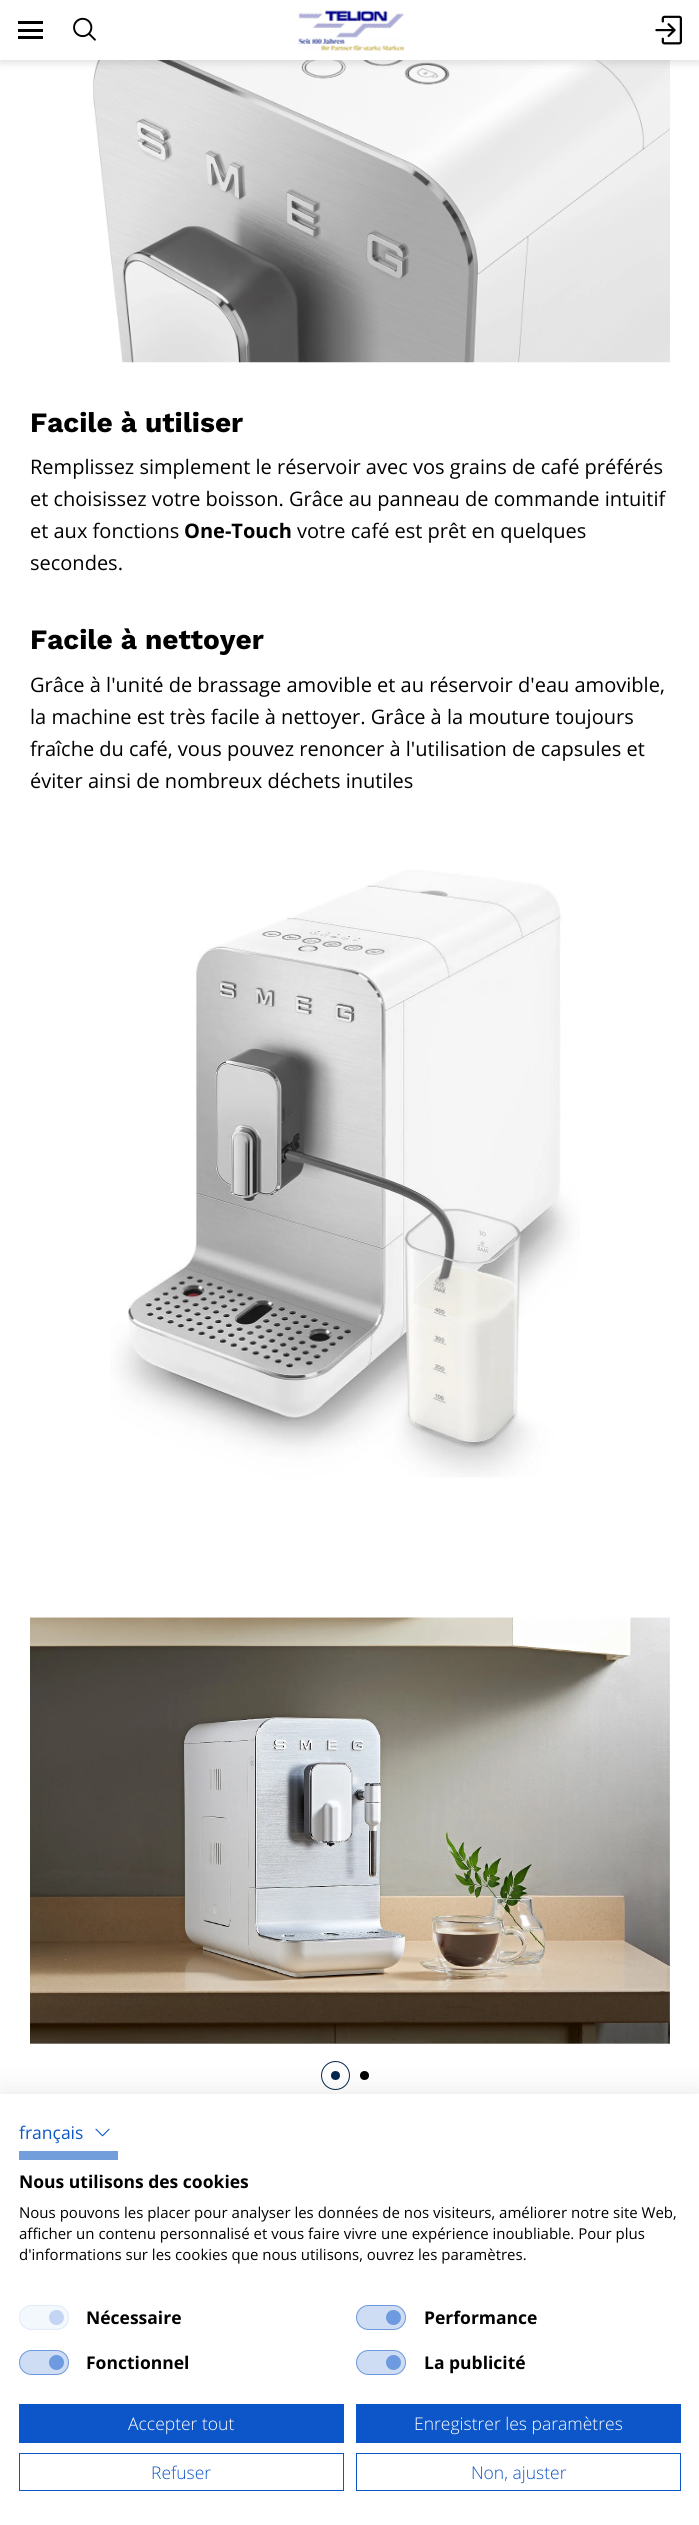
import math
import cairo


def round_path(ctx, x, y, w, h, r):
	ctx.new_sub_path()
	for i, (u, v) in enumerate([(x + w - r, y + h - r), (x + r, y + h - r), (x + r, y + r), (x + w - r, y + r)]):
		ctx.arc(u, v, r, i * math.pi / 2, (i + 1) * math.pi / 2)
	ctx.close_path()

def blur_box(ctx, x, y, w, h, r, blur, alpha):
	ctx.push_group_with_content(cairo.CONTENT_ALPHA)
	ctx.set_operator(cairo.OPERATOR_SOURCE)
	for i in range(15, -16, -2):
		e = blur * i / 6
		if min(w, h) + 2 * e > 0:
			ctx.set_source_rgba(0, 0, 0, alpha * math.erfc((i - 1) / 8.5) / 2)
			round_path(ctx, x - e, y - e, w + 2 * e, h + 2 * e, max(0, min(r + e + blur * .6, min(w, h) / 2 + e)))
			ctx.fill()
	ctx.mask(ctx.pop_group())

def paste(ctx, path, x, y, w, h):
	ctx.save()
	ctx.set_source_surface(cairo.ImageSurface.create_from_png(path), x, y)
	ctx.rectangle(x, y, w, h)
	ctx.fill()
	ctx.restore()

def draw(ctx):
	ctx.set_source_rgb(1, 1, 1)
	ctx.paint()
	paste(ctx, 'media/4.png', 93, 60, 577, 303)
	ctx.set_source_rgb(0.004, 0.004, 0.004)
	blur_box(ctx, 0, 3, 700, 60, 0, 4, 0.12)
	ctx.set_source_rgb(1, 1, 1)
	ctx.rectangle(0, 0, 699, 60)
	ctx.fill()
	ctx.set_source_rgb(0, 0, 0)
	ctx.rectangle(18, 21, 25, 3)
	ctx.rectangle(18, 29, 25, 3)
	ctx.rectangle(18, 36, 25, 3)
	ctx.fill()
	paste(ctx, 'media/1.png', 73, 17, 23, 24)
	paste(ctx, 'media/2.png', 298, 10, 106, 41)
	paste(ctx, 'media/3.png', 655, 15, 27, 30)
	ctx.select_font_face('Work Sans', cairo.FONT_SLANT_NORMAL, cairo.FONT_WEIGHT_BOLD)
	ctx.set_font_size(28)
	ctx.move_to(30, 432)
	ctx.show_text('Facile à utiliser')
	ctx.select_font_face('Open Sans')
	ctx.set_font_size(20)
	for x, y, s in [
		(30, 474, 'Remplissez simplement le réservoir avec vos grains de café préférés'),
		(30, 506, 'et choisissez votre boisson. Grâce au panneau de commande intuitif'),
		(30, 538, 'et aux fonctions'),
	]:
		ctx.move_to(x, y)
		ctx.show_text(s)
	ctx.select_font_face('Open Sans', cairo.FONT_SLANT_NORMAL, cairo.FONT_WEIGHT_BOLD)
	ctx.move_to(184, 538)
	ctx.show_text('One-Touch')
	ctx.select_font_face('Open Sans')
	ctx.move_to(297, 538)
	ctx.show_text('votre café est prêt en quelques')
	ctx.move_to(30, 570)
	ctx.show_text('secondes.')
	ctx.select_font_face('Work Sans', cairo.FONT_SLANT_NORMAL, cairo.FONT_WEIGHT_BOLD)
	ctx.set_font_size(28)
	ctx.move_to(30, 649)
	ctx.show_text('Facile à nettoyer')
	ctx.select_font_face('Open Sans')
	ctx.set_font_size(20)
	for x, y, s in [
		(30, 692, 'Grâce à l\'unité de brassage amovible et au réservoir d\'eau amovible,'),
		(30, 724, 'la machine est très facile à nettoyer. Grâce à la mouture toujours'),
		(30, 756, 'fraîche du café, vous pouvez renoncer à l\'utilisation de capsules et'),
		(30, 788, 'éviter ainsi de nombreux déchets inutiles'),
	]:
		ctx.move_to(x, y)
		ctx.show_text(s)
	paste(ctx, 'media/5.png', 110, 870, 470, 608)
	paste(ctx, 'media/6.png', 30, 1617, 640, 427)
	ctx.arc(335.5, 2075.5, 14, 0, 2 * math.pi)
	ctx.set_source_rgb(0.016, 0.153, 0.306)
	ctx.set_line_width(1)
	ctx.stroke()
	ctx.arc(335.5, 2075.5, 4.5, 0, 2 * math.pi)
	ctx.fill()
	ctx.set_source_rgb(0, 0, 0)
	ctx.arc(364.5, 2075.5, 4.5, 0, 2 * math.pi)
	ctx.fill()
	ctx.set_source_rgb(0, 0, 0)
	blur_box(ctx, 0, 2094, 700, 431, 0, 15, 0.1)
	ctx.set_source_rgb(1, 1, 1)
	ctx.rectangle(0, 2094, 699, 431)
	ctx.fill()
	ctx.set_font_size(17.5)
	ctx.set_source_rgb(0.051, 0.337, 0.788)
	ctx.move_to(19, 2139)
	ctx.show_text('français')
	paste(ctx, 'media/7.png', 95, 2128, 15, 9)
	ctx.set_source_rgb(0.447, 0.62, 0.859)
	ctx.rectangle(19, 2151, 99, 9)
	ctx.fill()
	ctx.select_font_face('Open Sans', cairo.FONT_SLANT_NORMAL, cairo.FONT_WEIGHT_BOLD)
	ctx.set_source_rgb(0, 0, 0)
	ctx.move_to(19, 2188)
	ctx.show_text('Nous utilisons des cookies')
	ctx.select_font_face('Open Sans')
	ctx.set_font_size(15)
	for x, y, s in [
		(19, 2218, 'Nous pouvons les placer pour analyser les données de nos visiteurs, améliorer notre site Web,'),
		(19, 2239, 'afficher un contenu personnalisé et vous faire vivre une expérience inoubliable. Pour plus'),
		(19, 2260, 'd\'informations sur les cookies que nous utilisons, ouvrez les paramètres.'),
	]:
		ctx.move_to(x, y)
		ctx.show_text(s)
	ctx.set_source_rgb(0.953, 0.969, 0.988)
	round_path(ctx, 19, 2305, 50, 25, 12.5)
	ctx.fill()
	ctx.set_source_rgb(0.765, 0.835, 0.949)
	ctx.arc(56.5, 2317.5, 7.5, 0, 2 * math.pi)
	ctx.fill()
	round_path(ctx, 19.5, 2305.5, 49, 24, 12)
	ctx.set_source_rgb(0.882, 0.918, 0.973)
	ctx.stroke()
	ctx.select_font_face('Open Sans', cairo.FONT_SLANT_NORMAL, cairo.FONT_WEIGHT_BOLD)
	ctx.set_font_size(17.5)
	ctx.set_source_rgb(0, 0, 0)
	ctx.move_to(86, 2324)
	ctx.show_text('Nécessaire')
	ctx.set_source_rgb(0.812, 0.867, 0.957)
	round_path(ctx, 356, 2305, 50, 25, 12.5)
	ctx.fill()
	ctx.set_source_rgb(0.431, 0.604, 0.875)
	ctx.arc(393.5, 2317.5, 7.5, 0, 2 * math.pi)
	ctx.fill()
	round_path(ctx, 356.5, 2305.5, 49, 24, 12)
	ctx.set_source_rgba(0.051, 0.337, 0.788, 0.5)
	ctx.stroke()
	ctx.set_source_rgb(0, 0, 0)
	ctx.move_to(424, 2324)
	ctx.show_text('Performance')
	ctx.set_source_rgb(0.812, 0.867, 0.957)
	round_path(ctx, 19, 2350, 50, 25, 12.5)
	ctx.fill()
	ctx.set_source_rgb(0.431, 0.604, 0.875)
	ctx.arc(56.5, 2362.5, 7.5, 0, 2 * math.pi)
	ctx.fill()
	round_path(ctx, 19.5, 2350.5, 49, 24, 12)
	ctx.set_source_rgba(0.051, 0.337, 0.788, 0.5)
	ctx.stroke()
	ctx.set_source_rgb(0, 0, 0)
	ctx.move_to(86, 2369)
	ctx.show_text('Fonctionnel')
	ctx.set_source_rgb(0.812, 0.867, 0.957)
	round_path(ctx, 356, 2350, 50, 25, 12.5)
	ctx.fill()
	ctx.set_source_rgb(0.431, 0.604, 0.875)
	ctx.arc(393.5, 2362.5, 7.5, 0, 2 * math.pi)
	ctx.fill()
	round_path(ctx, 356.5, 2350.5, 49, 24, 12)
	ctx.set_source_rgba(0.051, 0.337, 0.788, 0.5)
	ctx.stroke()
	ctx.set_source_rgb(0, 0, 0)
	ctx.move_to(424, 2369)
	ctx.show_text('La publicité')
	ctx.set_source_rgb(0.051, 0.337, 0.788)
	ctx.rectangle(19, 2404, 325, 39)
	ctx.fill()
	ctx.select_font_face('Open Sans Light')
	ctx.set_source_rgb(1, 1, 1)
	ctx.move_to(128, 2430)
	ctx.show_text('Accepter tout')
	ctx.set_source_rgb(0.051, 0.337, 0.788)
	ctx.rectangle(356, 2404, 325, 39)
	ctx.fill()
	ctx.set_source_rgb(1, 1, 1)
	ctx.move_to(414, 2430)
	ctx.show_text('Enregistrer les paramètres')
	ctx.rectangle(19.5, 2453.5, 324, 37)
	ctx.set_source_rgb(0.051, 0.337, 0.788)
	ctx.stroke()
	ctx.move_to(151, 2479)
	ctx.show_text('Refuser')
	ctx.rectangle(356.5, 2453.5, 324, 37)
	ctx.stroke()
	ctx.move_to(471, 2479)
	ctx.show_text('Non, ajuster')


surface = cairo.ImageSurface(cairo.FORMAT_RGB24, 699, 2525)
ctx = cairo.Context(surface)
options = cairo.FontOptions()
options.set_hint_metrics(cairo.HINT_METRICS_OFF)
options.set_hint_style(cairo.HINT_STYLE_NONE)
ctx.set_font_options(options)
ctx.set_miter_limit(4)
draw(ctx)
surface.write_to_png('image.png')
